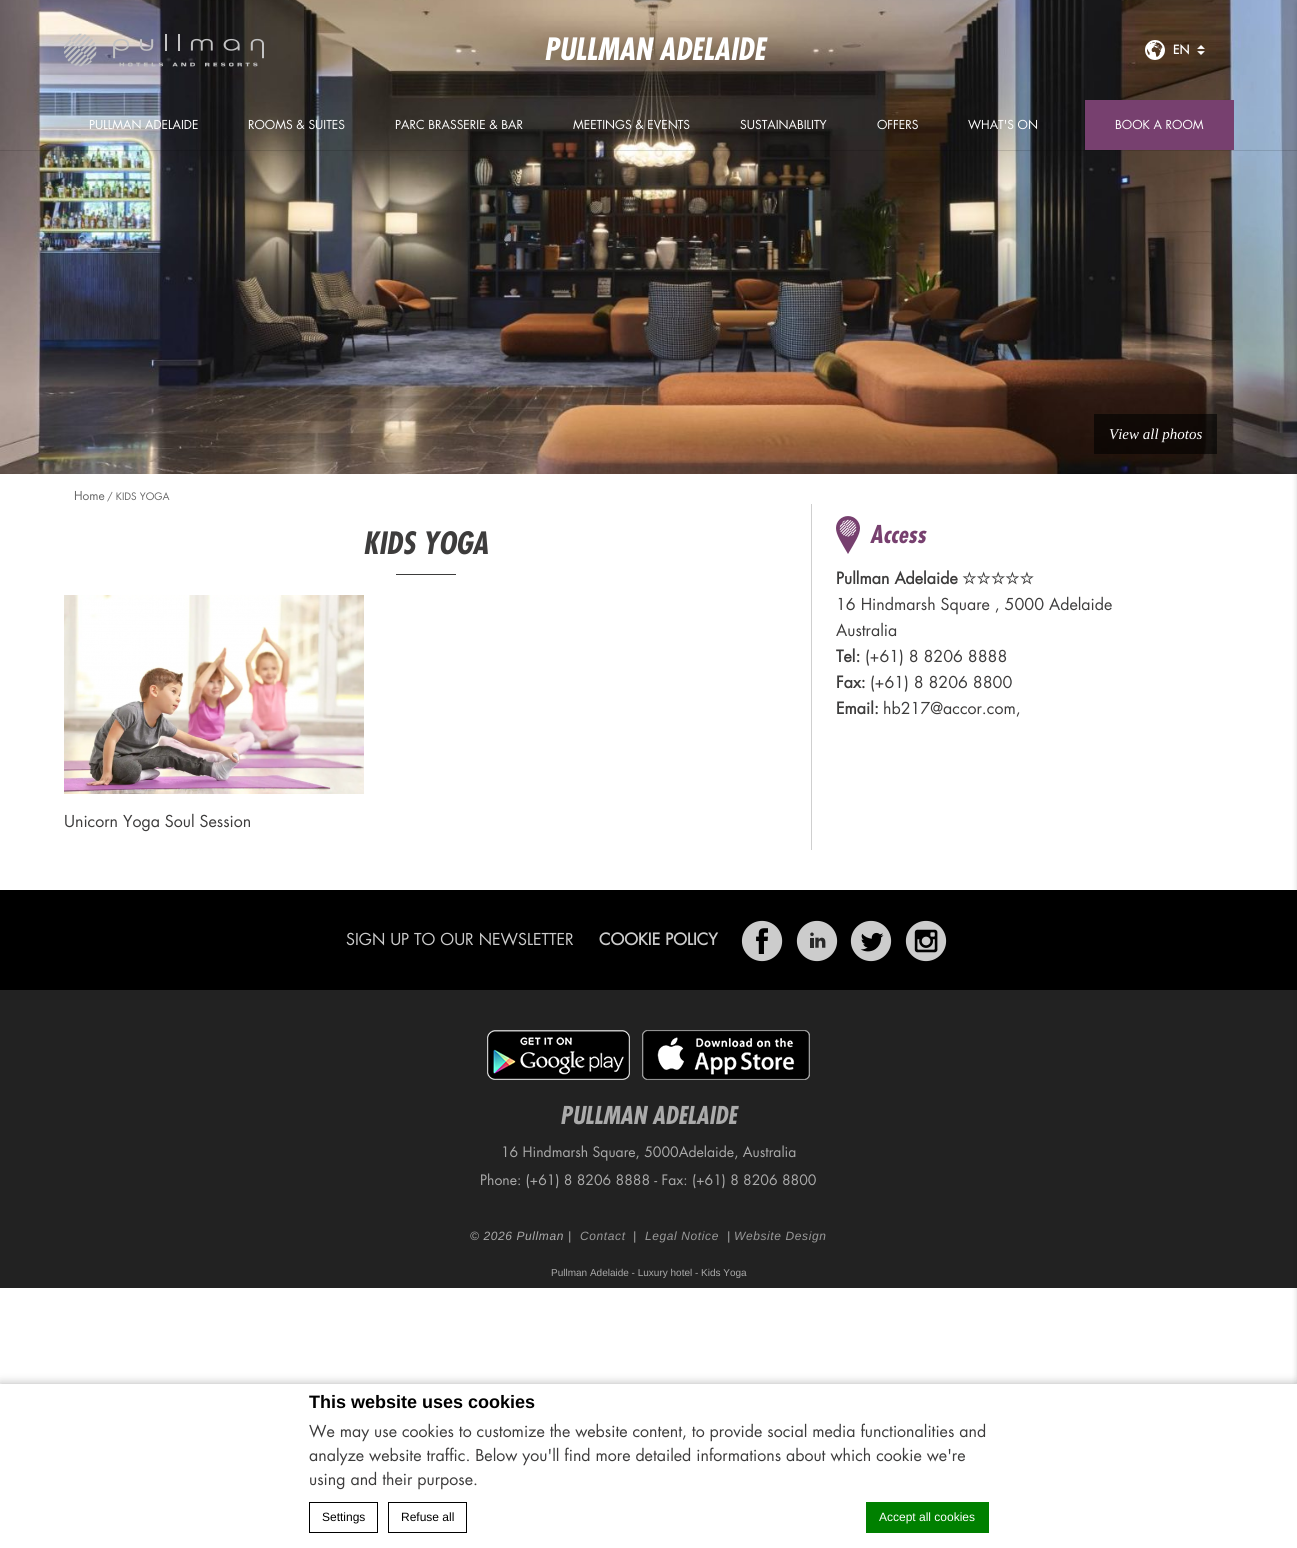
import math
import cairo


def write_spaced(ctx, x, y, s, letter, word):
	ctx.move_to(x, y)
	for ch in s:
		ctx.show_text(ch)
		ctx.rel_move_to(letter + word * (ch == ' '), 0)

def round_path(ctx, x, y, w, h, r):
	ctx.new_sub_path()
	for i, (u, v) in enumerate([(x + w - r, y + h - r), (x + r, y + h - r), (x + r, y + r), (x + w - r, y + r)]):
		ctx.arc(u, v, r, i * math.pi / 2, (i + 1) * math.pi / 2)
	ctx.close_path()

def blur_box(ctx, x, y, w, h, r, blur, alpha):
	ctx.push_group_with_content(cairo.CONTENT_ALPHA)
	ctx.set_operator(cairo.OPERATOR_SOURCE)
	for i in range(15, -16, -2):
		e = blur * i / 6
		if min(w, h) + 2 * e > 0:
			ctx.set_source_rgba(0, 0, 0, alpha * math.erfc((i - 1) / 8.5) / 2)
			round_path(ctx, x - e, y - e, w + 2 * e, h + 2 * e, max(0, min(r + e + blur * .6, min(w, h) / 2 + e)))
			ctx.fill()
	ctx.mask(ctx.pop_group())

def paste(ctx, path, x, y, w, h):
	ctx.save()
	ctx.set_source_surface(cairo.ImageSurface.create_from_png(path), x, y)
	ctx.rectangle(x, y, w, h)
	ctx.fill()
	ctx.restore()

def draw(ctx):
	ctx.set_source_rgb(1, 1, 1)
	ctx.paint()
	paste(ctx, 'media/4.png', 0, 0, 1297, 474)
	ctx.save()
	ctx.rectangle(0, 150, 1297, 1)
	ctx.clip()
	ctx.set_source_rgb(0, 0, 0)
	blur_box(ctx, 0, 1, 1297, 150, 0, 0.5, 0.15)
	ctx.restore()
	paste(ctx, 'media/1.png', 64, 33, 200, 34)
	ctx.select_font_face('Futura', cairo.FONT_SLANT_ITALIC, cairo.FONT_WEIGHT_BOLD)
	ctx.set_font_size(30)
	ctx.set_source_rgb(1, 1, 1)
	ctx.move_to(544, 60)
	ctx.show_text('PULLMAN ADELAIDE')
	paste(ctx, 'media/2.png', 1145, 40, 20, 20)
	ctx.select_font_face('Futura', cairo.FONT_SLANT_NORMAL, cairo.FONT_WEIGHT_BOLD)
	ctx.set_font_size(12)
	ctx.move_to(1173, 54)
	ctx.show_text('EN')
	paste(ctx, 'media/3.png', 1197, 45, 8, 10)
	ctx.select_font_face('Futura')
	for x, y, s in [
		(89, 129, 'PULLMAN ADELAIDE'),
		(248, 129, 'ROOMS & SUITES'),
		(395, 129, 'PARC BRASSERIE & BAR'),
		(573, 129, 'MEETINGS & EVENTS'),
		(740, 129, 'SUSTAINABILITY'),
		(877, 129, 'OFFERS'),
		(968, 129, 'WHAT\'S ON'),
	]:
		ctx.move_to(x, y)
		ctx.show_text(s)
	ctx.set_source_rgb(0.467, 0.251, 0.435)
	ctx.rectangle(1085, 100, 149, 50)
	ctx.fill()
	ctx.set_source_rgb(1, 1, 1)
	ctx.move_to(1115, 129)
	ctx.show_text('BOOK A ROOM')
	ctx.set_source_rgb(0, 0, 0)
	ctx.rectangle(0, 890, 1297, 100)
	ctx.fill()
	ctx.set_source_rgb(0.133, 0.133, 0.133)
	ctx.rectangle(0, 990, 1297, 298)
	ctx.fill()
	ctx.set_source_rgb(0, 0, 0)
	blur_box(ctx, 1297, 3, 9, 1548, 0, 3, 0.15)
	ctx.set_source_rgba(0, 0, 0, 0.6)
	ctx.rectangle(1094, 414, 123, 40)
	ctx.fill()
	ctx.select_font_face('Liberation Serif', cairo.FONT_SLANT_ITALIC)
	ctx.set_font_size(15)
	ctx.set_source_rgb(1, 1, 1)
	ctx.move_to(1109, 439)
	ctx.show_text('View all photos')
	ctx.set_source_rgb(0.812, 0.812, 0.812)
	ctx.rectangle(811, 504, 1, 346)
	ctx.fill()
	ctx.select_font_face('Futura')
	ctx.set_font_size(12)
	ctx.set_source_rgb(0.4, 0.4, 0.4)
	ctx.move_to(74, 500)
	ctx.show_text('Home')
	ctx.set_font_size(10)
	ctx.move_to(107, 500)
	ctx.show_text('/ KIDS YOGA')
	ctx.select_font_face('Futura', cairo.FONT_SLANT_ITALIC, cairo.FONT_WEIGHT_BOLD)
	ctx.set_font_size(30)
	ctx.set_source_rgb(0.239, 0.235, 0.235)
	ctx.move_to(363, 554)
	ctx.show_text('KIDS YOGA')
	ctx.rectangle(396, 574, 60, 1)
	ctx.fill()
	paste(ctx, 'media/5.png', 64, 595, 300, 199)
	ctx.select_font_face('Futura')
	ctx.set_font_size(16)
	ctx.move_to(64, 827)
	ctx.show_text('Unicorn Yoga Soul Session')
	paste(ctx, 'media/6.png', 836, 516, 24, 38)
	ctx.select_font_face('Futura', cairo.FONT_SLANT_ITALIC, cairo.FONT_WEIGHT_BOLD)
	ctx.set_font_size(24)
	ctx.set_source_rgb(0.467, 0.251, 0.435)
	ctx.move_to(870, 543)
	ctx.show_text('Access')
	ctx.select_font_face('Futura', cairo.FONT_SLANT_NORMAL, cairo.FONT_WEIGHT_BOLD)
	ctx.set_font_size(16)
	ctx.set_source_rgb(0.239, 0.235, 0.235)
	ctx.move_to(836, 584)
	ctx.show_text('Pullman Adelaide')
	ctx.select_font_face('DejaVu Sans', cairo.FONT_SLANT_NORMAL, cairo.FONT_WEIGHT_BOLD)
	ctx.move_to(962, 584)
	ctx.show_text('☆☆☆☆☆')
	ctx.select_font_face('Futura')
	ctx.move_to(836, 610)
	ctx.show_text('16 Hindmarsh Square , 5000 Adelaide')
	ctx.move_to(836, 636)
	ctx.show_text('Australia')
	ctx.select_font_face('Futura', cairo.FONT_SLANT_NORMAL, cairo.FONT_WEIGHT_BOLD)
	ctx.move_to(836, 662)
	ctx.show_text('Tel:')
	ctx.select_font_face('Futura')
	ctx.move_to(865, 662)
	ctx.show_text('(+61) 8 8206 8888')
	ctx.select_font_face('Futura', cairo.FONT_SLANT_NORMAL, cairo.FONT_WEIGHT_BOLD)
	ctx.move_to(836, 688)
	ctx.show_text('Fax:')
	ctx.select_font_face('Futura')
	ctx.move_to(870, 688)
	ctx.show_text('(+61) 8 8206 8800')
	ctx.select_font_face('Futura', cairo.FONT_SLANT_NORMAL, cairo.FONT_WEIGHT_BOLD)
	ctx.move_to(836, 714)
	ctx.show_text('Email:')
	ctx.select_font_face('Futura')
	ctx.move_to(883, 714)
	ctx.show_text('hb217@accor.com,')
	ctx.set_source_rgb(0.8, 0.8, 0.8)
	ctx.move_to(346, 945)
	ctx.show_text('SIGN UP TO OUR NEWSLETTER')
	ctx.select_font_face('Futura', cairo.FONT_SLANT_NORMAL, cairo.FONT_WEIGHT_BOLD)
	ctx.move_to(599, 945)
	ctx.show_text('COOKIE POLICY')
	paste(ctx, 'media/7.png', 741, 920, 42, 42)
	paste(ctx, 'media/8.png', 796, 920, 42, 42)
	paste(ctx, 'media/9.png', 850, 920, 42, 42)
	paste(ctx, 'media/10.png', 905, 920, 42, 42)
	paste(ctx, 'media/11.png', 487, 1030, 143, 50)
	paste(ctx, 'media/12.png', 642, 1030, 168, 50)
	ctx.select_font_face('Futura', cairo.FONT_SLANT_ITALIC, cairo.FONT_WEIGHT_BOLD)
	ctx.set_font_size(24)
	ctx.set_source_rgb(0.667, 0.667, 0.667)
	ctx.move_to(560, 1124)
	ctx.show_text('PULLMAN ADELAIDE')
	ctx.select_font_face('Futura')
	ctx.set_font_size(14)
	ctx.move_to(501, 1157)
	ctx.show_text('16 Hindmarsh Square, 5000Adelaide, Australia')
	ctx.move_to(480, 1185)
	ctx.show_text('Phone: (+61) 8 8206 8888 - Fax: (+61) 8 8206 8800')
	ctx.select_font_face('Liberation Sans', cairo.FONT_SLANT_ITALIC)
	ctx.set_font_size(12)
	write_spaced(ctx, 470, 1240, '© 2026 Pullman |', 0.6, 0)
	ctx.set_source_rgb(0.6, 0.6, 0.6)
	write_spaced(ctx, 580, 1240, 'Contact', 0.6, 0)
	ctx.set_source_rgb(0.667, 0.667, 0.667)
	write_spaced(ctx, 633, 1240, '|', 0.6, 0)
	ctx.set_source_rgb(0.6, 0.6, 0.6)
	write_spaced(ctx, 645, 1240, 'Legal Notice', 0.6, 0)
	ctx.set_source_rgb(0.667, 0.667, 0.667)
	write_spaced(ctx, 727, 1240, '|', 0.6, 0)
	ctx.set_source_rgb(0.6, 0.6, 0.6)
	write_spaced(ctx, 734, 1240, 'Website Design', 0.6, 0)
	ctx.select_font_face('Liberation Sans')
	ctx.set_font_size(10)
	ctx.set_source_rgb(0.667, 0.667, 0.667)
	ctx.move_to(551, 1276)
	ctx.show_text('Pullman Adelaide - Luxury hotel - Kids Yoga')
	ctx.set_source_rgb(0, 0, 0)
	blur_box(ctx, 0, 1384, 1297, 164, 0, 5, 0.3)
	ctx.set_source_rgb(1, 1, 1)
	ctx.rectangle(0, 1384, 1297, 164)
	ctx.fill()
	ctx.select_font_face('Liberation Sans', cairo.FONT_SLANT_NORMAL, cairo.FONT_WEIGHT_BOLD)
	ctx.set_font_size(18)
	ctx.set_source_rgb(0, 0, 0)
	ctx.move_to(309, 1408)
	ctx.show_text('This website uses cookies')
	ctx.select_font_face('Futura')
	ctx.set_font_size(16)
	ctx.set_source_rgb(0.239, 0.235, 0.235)
	for x, y, s in [
		(309, 1437, 'We may use cookies to customize the website content, to provide social media functionalities and'),
		(309, 1461, 'analyze website traffic. Below you\'ll find more detailed informations about which cookie we\'re'),
		(309, 1485, 'using and their purpose.'),
	]:
		ctx.move_to(x, y)
		ctx.show_text(s)
	ctx.rectangle(309.5, 1502.5, 68, 30)
	ctx.set_source_rgb(0, 0, 0)
	ctx.set_line_width(1)
	ctx.stroke()
	ctx.select_font_face('Liberation Sans')
	ctx.set_font_size(12)
	ctx.move_to(322, 1521)
	ctx.show_text('Settings')
	ctx.rectangle(388.5, 1502.5, 78, 30)
	ctx.stroke()
	ctx.move_to(401, 1521)
	ctx.show_text('Refuse all')
	ctx.set_source_rgb(0, 0.502, 0)
	ctx.rectangle(866, 1502, 123, 31)
	ctx.fill()
	ctx.set_source_rgb(1, 1, 1)
	ctx.move_to(879, 1521)
	ctx.show_text('Accept all cookies')


surface = cairo.ImageSurface(cairo.FORMAT_RGB24, 1297, 1548)
ctx = cairo.Context(surface)
options = cairo.FontOptions()
options.set_hint_metrics(cairo.HINT_METRICS_OFF)
options.set_hint_style(cairo.HINT_STYLE_NONE)
ctx.set_font_options(options)
ctx.set_miter_limit(4)
draw(ctx)
surface.write_to_png('image.png')
